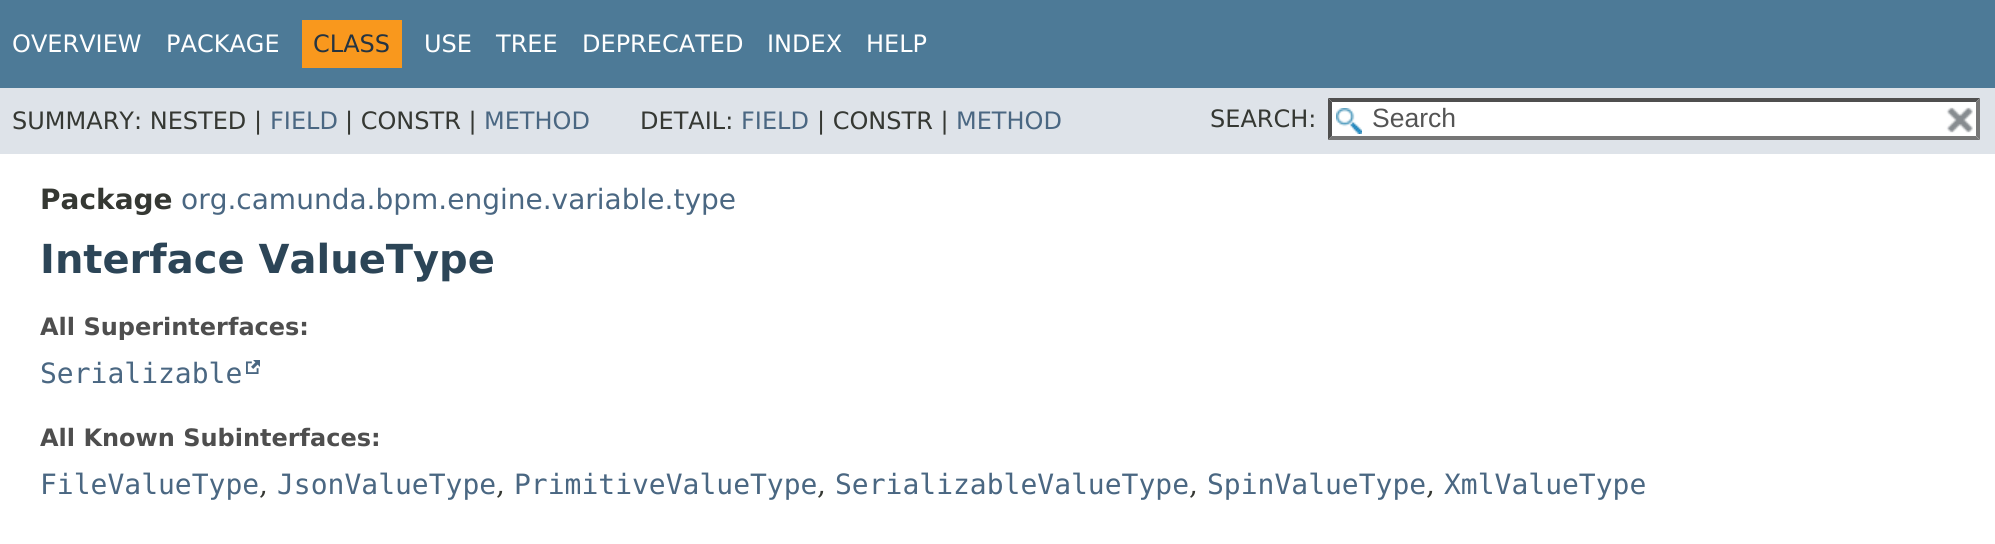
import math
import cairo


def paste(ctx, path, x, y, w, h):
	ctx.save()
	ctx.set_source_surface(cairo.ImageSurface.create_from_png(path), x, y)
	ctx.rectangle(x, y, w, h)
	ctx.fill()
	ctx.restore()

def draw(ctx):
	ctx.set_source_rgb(1, 1, 1)
	ctx.paint()
	ctx.set_source_rgb(0.302, 0.478, 0.592)
	ctx.rectangle(0, 0, 1995, 88)
	ctx.fill()
	ctx.select_font_face('DejaVu Sans')
	ctx.set_font_size(24)
	ctx.set_source_rgb(1, 1, 1)
	ctx.move_to(12, 52)
	ctx.show_text('OVERVIEW')
	ctx.move_to(166, 52)
	ctx.show_text('PACKAGE')
	ctx.set_source_rgb(0.973, 0.596, 0.114)
	ctx.rectangle(302, 20, 100, 48)
	ctx.fill()
	ctx.set_source_rgb(0.145, 0.204, 0.255)
	ctx.move_to(313, 52)
	ctx.show_text('CLASS')
	ctx.set_source_rgb(1, 1, 1)
	for x, y, s in [
		(424, 52, 'USE'),
		(496, 52, 'TREE'),
		(582, 52, 'DEPRECATED'),
		(767, 52, 'INDEX'),
		(866, 52, 'HELP'),
	]:
		ctx.move_to(x, y)
		ctx.show_text(s)
	ctx.set_source_rgb(0.871, 0.89, 0.914)
	ctx.rectangle(0, 88, 1995, 66)
	ctx.fill()
	ctx.set_source_rgb(0.208, 0.22, 0.2)
	ctx.move_to(12, 129)
	ctx.show_text('SUMMARY: NESTED |')
	ctx.set_source_rgb(0.29, 0.404, 0.51)
	ctx.move_to(270, 129)
	ctx.show_text('FIELD')
	ctx.set_source_rgb(0.208, 0.22, 0.2)
	ctx.move_to(345, 129)
	ctx.show_text('| CONSTR |')
	ctx.set_source_rgb(0.29, 0.404, 0.51)
	ctx.move_to(484, 129)
	ctx.show_text('METHOD')
	ctx.set_source_rgb(0.208, 0.22, 0.2)
	ctx.move_to(640, 129)
	ctx.show_text('DETAIL:')
	ctx.set_source_rgb(0.29, 0.404, 0.51)
	ctx.move_to(741, 129)
	ctx.show_text('FIELD')
	ctx.set_source_rgb(0.208, 0.22, 0.2)
	ctx.move_to(817, 129)
	ctx.show_text('| CONSTR |')
	ctx.set_source_rgb(0.29, 0.404, 0.51)
	ctx.move_to(956, 129)
	ctx.show_text('METHOD')
	ctx.set_source_rgb(0.208, 0.22, 0.2)
	ctx.move_to(1210, 127)
	ctx.show_text('SEARCH:')
	ctx.set_source_rgb(1, 1, 1)
	ctx.rectangle(1328, 98, 652, 42)
	ctx.fill()
	paste(ctx, 'media/1.png', 1336, 108, 26, 26)
	ctx.set_source_rgb(0.31, 0.31, 0.31)
	ctx.new_path()
	ctx.move_to(1328, 98)
	ctx.line_to(1980, 98)
	ctx.line_to(1976, 102)
	ctx.line_to(1332, 102)
	ctx.close_path()
	ctx.fill()
	ctx.set_source_rgb(0.463, 0.463, 0.463)
	ctx.new_path()
	ctx.move_to(1980, 98)
	ctx.line_to(1980, 140)
	ctx.line_to(1976, 136)
	ctx.line_to(1976, 102)
	ctx.close_path()
	ctx.fill()
	ctx.new_path()
	ctx.move_to(1980, 140)
	ctx.line_to(1328, 140)
	ctx.line_to(1332, 136)
	ctx.line_to(1976, 136)
	ctx.close_path()
	ctx.fill()
	ctx.set_source_rgb(0.31, 0.31, 0.31)
	ctx.new_path()
	ctx.move_to(1328, 140)
	ctx.line_to(1328, 98)
	ctx.line_to(1332, 102)
	ctx.line_to(1332, 136)
	ctx.close_path()
	ctx.fill()
	ctx.select_font_face('Liberation Sans')
	ctx.set_font_size(26.5)
	ctx.set_source_rgb(0.329, 0.329, 0.329)
	ctx.move_to(1372, 127)
	ctx.show_text('Search')
	paste(ctx, 'media/2.png', 1946, 107, 27, 26)
	ctx.select_font_face('DejaVu Sans', cairo.FONT_SLANT_NORMAL, cairo.FONT_WEIGHT_BOLD)
	ctx.set_font_size(28)
	ctx.set_source_rgb(0.208, 0.22, 0.2)
	ctx.move_to(40, 209)
	ctx.show_text('Package')
	ctx.select_font_face('DejaVu Sans')
	ctx.set_source_rgb(0.29, 0.404, 0.51)
	ctx.move_to(181, 209)
	ctx.show_text('org.camunda.bpm.engine.variable.type')
	ctx.select_font_face('DejaVu Sans', cairo.FONT_SLANT_NORMAL, cairo.FONT_WEIGHT_BOLD)
	ctx.set_font_size(40)
	ctx.set_source_rgb(0.173, 0.271, 0.341)
	ctx.move_to(40, 273)
	ctx.show_text('Interface ValueType')
	ctx.set_font_size(24)
	ctx.set_source_rgb(0.306, 0.306, 0.306)
	ctx.move_to(40, 335)
	ctx.show_text('All Superinterfaces:')
	ctx.select_font_face('DejaVu Sans Mono')
	ctx.set_font_size(28)
	ctx.set_source_rgb(0.29, 0.404, 0.51)
	ctx.move_to(40, 383)
	ctx.show_text('Serializable')
	paste(ctx, 'media/3.png', 246, 360, 14, 14)
	ctx.select_font_face('DejaVu Sans', cairo.FONT_SLANT_NORMAL, cairo.FONT_WEIGHT_BOLD)
	ctx.set_font_size(24)
	ctx.set_source_rgb(0.306, 0.306, 0.306)
	ctx.move_to(40, 446)
	ctx.show_text('All Known Subinterfaces:')
	ctx.select_font_face('DejaVu Sans Mono')
	ctx.set_font_size(28)
	ctx.set_source_rgb(0.29, 0.404, 0.51)
	ctx.move_to(40, 494)
	ctx.show_text('FileValueType')
	ctx.select_font_face('DejaVu Serif')
	ctx.set_source_rgb(0.208, 0.22, 0.2)
	ctx.move_to(259, 494)
	ctx.show_text(',')
	ctx.select_font_face('DejaVu Sans Mono')
	ctx.set_source_rgb(0.29, 0.404, 0.51)
	ctx.move_to(277, 494)
	ctx.show_text('JsonValueType')
	ctx.select_font_face('DejaVu Serif')
	ctx.set_source_rgb(0.208, 0.22, 0.2)
	ctx.move_to(496, 494)
	ctx.show_text(',')
	ctx.select_font_face('DejaVu Sans Mono')
	ctx.set_source_rgb(0.29, 0.404, 0.51)
	ctx.move_to(514, 494)
	ctx.show_text('PrimitiveValueType')
	ctx.select_font_face('DejaVu Serif')
	ctx.set_source_rgb(0.208, 0.22, 0.2)
	ctx.move_to(817, 494)
	ctx.show_text(',')
	ctx.select_font_face('DejaVu Sans Mono')
	ctx.set_source_rgb(0.29, 0.404, 0.51)
	ctx.move_to(835, 494)
	ctx.show_text('SerializableValueType')
	ctx.select_font_face('DejaVu Serif')
	ctx.set_source_rgb(0.208, 0.22, 0.2)
	ctx.move_to(1189, 494)
	ctx.show_text(',')
	ctx.select_font_face('DejaVu Sans Mono')
	ctx.set_source_rgb(0.29, 0.404, 0.51)
	ctx.move_to(1207, 494)
	ctx.show_text('SpinValueType')
	ctx.select_font_face('DejaVu Serif')
	ctx.set_source_rgb(0.208, 0.22, 0.2)
	ctx.move_to(1426, 494)
	ctx.show_text(',')
	ctx.select_font_face('DejaVu Sans Mono')
	ctx.set_source_rgb(0.29, 0.404, 0.51)
	ctx.move_to(1444, 494)
	ctx.show_text('XmlValueType')


surface = cairo.ImageSurface(cairo.FORMAT_RGB24, 1995, 544)
ctx = cairo.Context(surface)
options = cairo.FontOptions()
options.set_hint_metrics(cairo.HINT_METRICS_OFF)
options.set_hint_style(cairo.HINT_STYLE_NONE)
ctx.set_font_options(options)
ctx.set_miter_limit(4)
draw(ctx)
surface.write_to_png('image.png')
